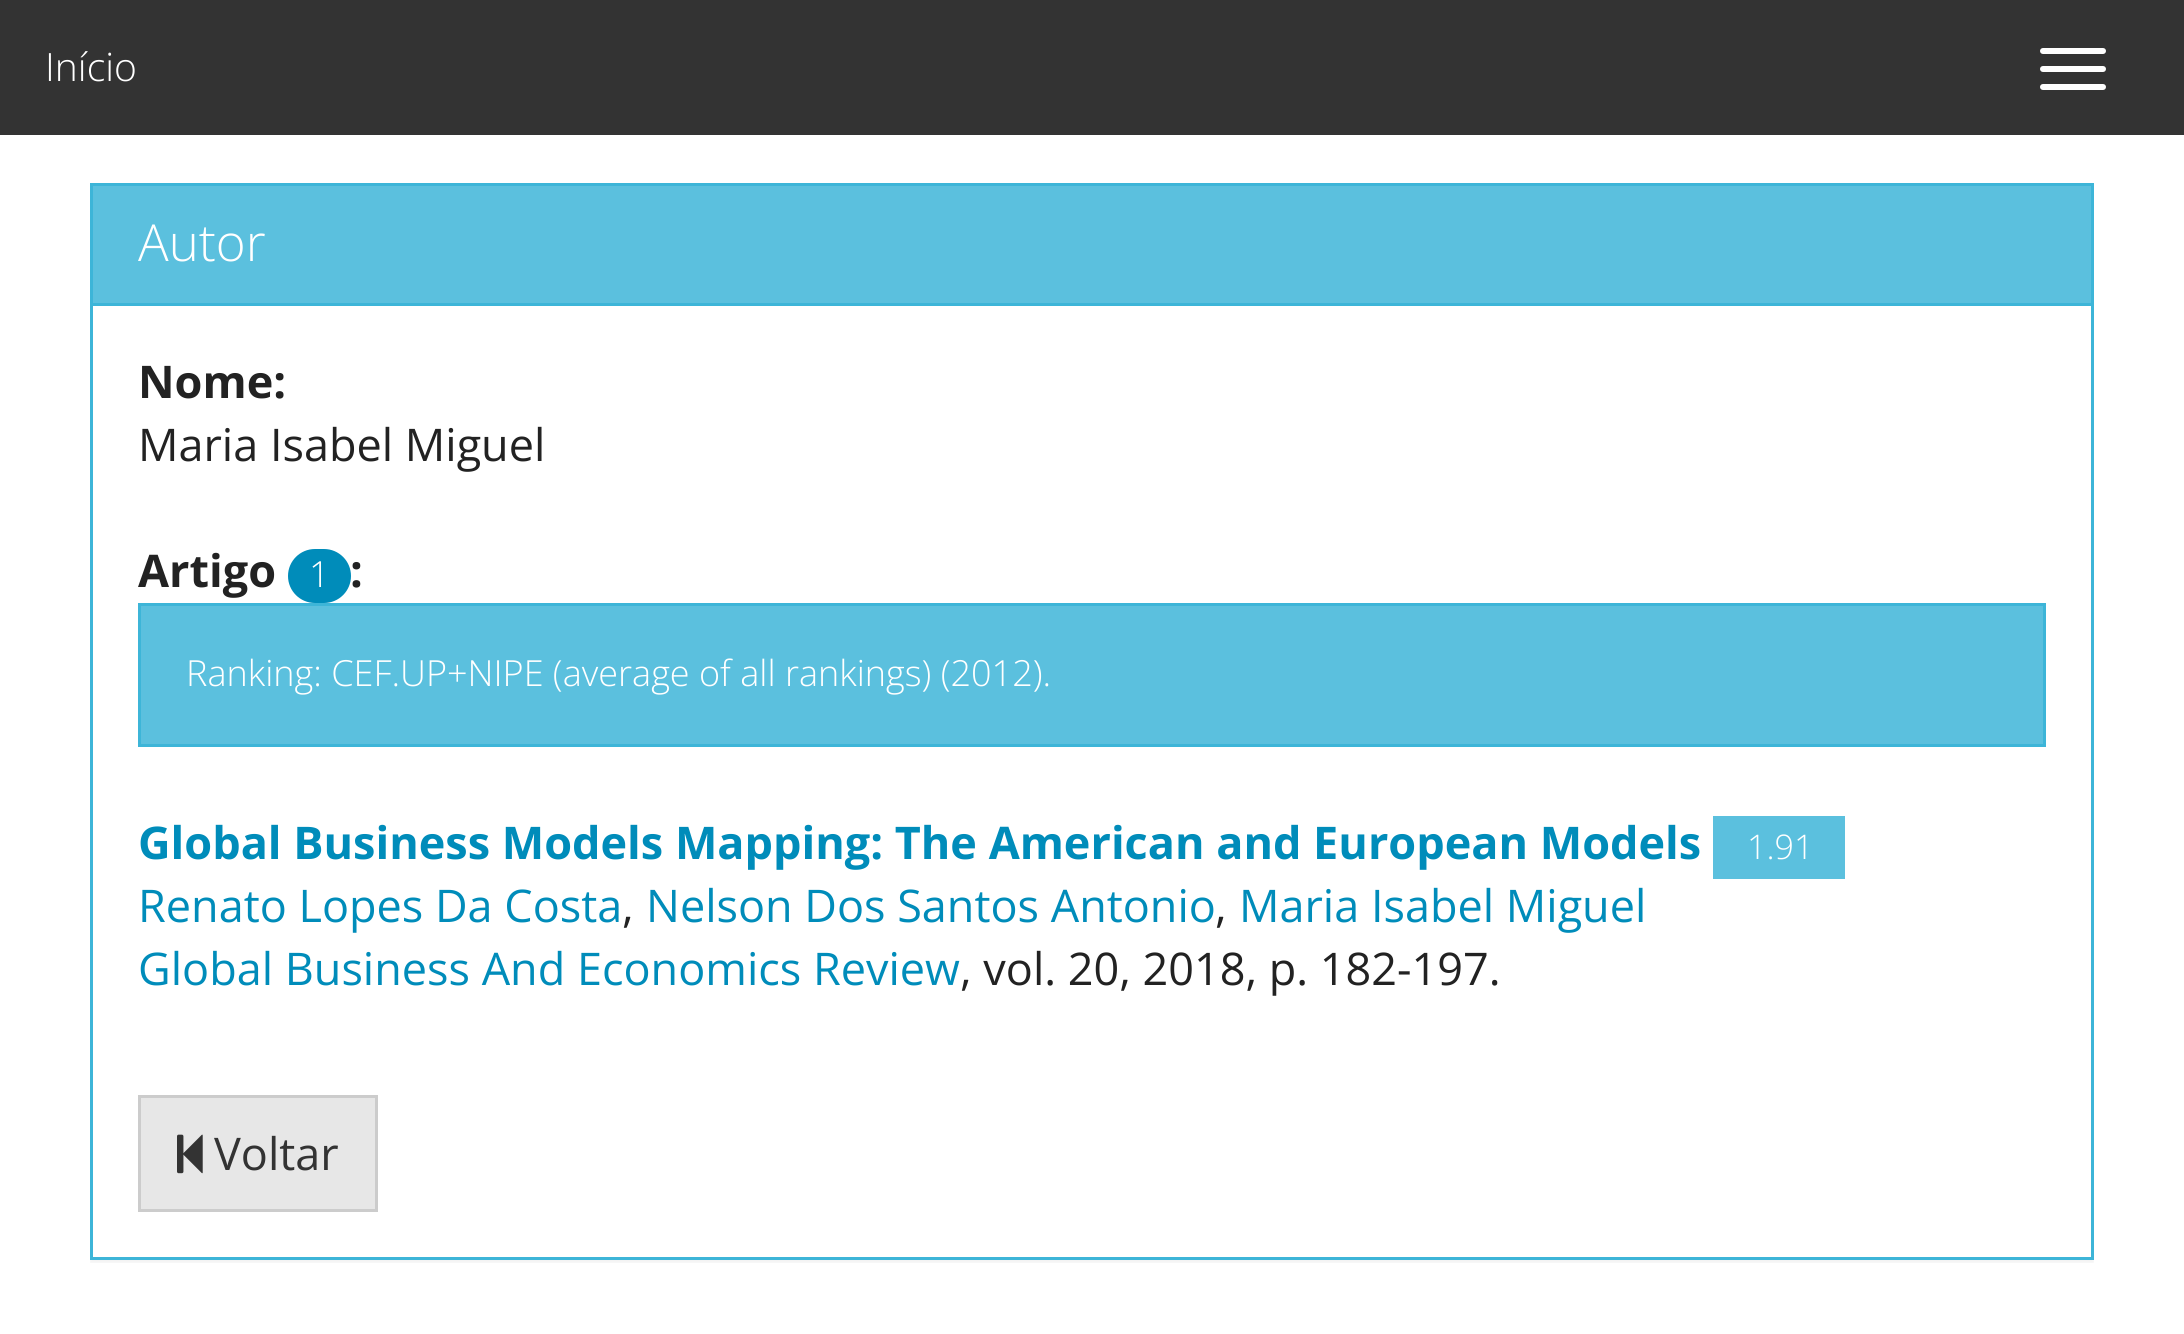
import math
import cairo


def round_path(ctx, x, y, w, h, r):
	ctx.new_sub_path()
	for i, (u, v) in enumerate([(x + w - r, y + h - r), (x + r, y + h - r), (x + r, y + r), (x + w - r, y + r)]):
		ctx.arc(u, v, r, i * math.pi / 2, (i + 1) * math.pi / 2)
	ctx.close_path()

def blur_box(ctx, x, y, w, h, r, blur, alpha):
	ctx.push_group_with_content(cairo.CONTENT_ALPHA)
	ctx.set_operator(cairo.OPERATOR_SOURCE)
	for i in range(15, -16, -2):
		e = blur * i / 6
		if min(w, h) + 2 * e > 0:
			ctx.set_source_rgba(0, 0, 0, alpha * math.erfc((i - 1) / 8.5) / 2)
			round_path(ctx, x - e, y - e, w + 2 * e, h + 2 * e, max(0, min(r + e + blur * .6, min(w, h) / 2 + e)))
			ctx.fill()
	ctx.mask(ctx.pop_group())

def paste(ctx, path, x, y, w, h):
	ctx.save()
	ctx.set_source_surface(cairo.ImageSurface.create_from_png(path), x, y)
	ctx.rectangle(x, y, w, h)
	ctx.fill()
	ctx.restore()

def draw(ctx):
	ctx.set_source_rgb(1, 1, 1)
	ctx.paint()
	ctx.set_source_rgb(0.2, 0.2, 0.2)
	ctx.rectangle(0, 0, 2184, 135)
	ctx.fill()
	ctx.select_font_face('Open Sans Light')
	ctx.set_font_size(39)
	ctx.set_source_rgb(1, 1, 1)
	ctx.move_to(45, 81)
	ctx.show_text('Início')
	round_path(ctx, 2040, 48, 66, 6, 3)
	ctx.fill()
	round_path(ctx, 2040, 66, 66, 6, 3)
	ctx.fill()
	round_path(ctx, 2040, 84, 66, 6, 3)
	ctx.fill()
	ctx.save()
	ctx.rectangle(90, 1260, 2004, 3)
	ctx.clip()
	ctx.set_source_rgb(0, 0, 0)
	blur_box(ctx, 90, 186, 2004, 1077, 0, 1.5, 0.05)
	ctx.restore()
	ctx.rectangle(91.5, 184.5, 2001, 1074)
	ctx.set_source_rgb(0.239, 0.71, 0.847)
	ctx.set_line_width(3)
	ctx.stroke()
	ctx.set_source_rgb(0.357, 0.753, 0.871)
	ctx.rectangle(93, 186, 1998, 117)
	ctx.fill()
	ctx.set_source_rgb(0.239, 0.71, 0.847)
	ctx.rectangle(93, 303, 1998, 3)
	ctx.fill()
	ctx.set_font_size(51)
	ctx.set_source_rgb(1, 1, 1)
	ctx.move_to(138, 261)
	ctx.show_text('Autor')
	ctx.select_font_face('Open Sans', cairo.FONT_SLANT_NORMAL, cairo.FONT_WEIGHT_BOLD)
	ctx.set_font_size(45)
	ctx.set_source_rgb(0.133, 0.133, 0.133)
	ctx.move_to(138, 398)
	ctx.show_text('Nome:')
	ctx.select_font_face('Open Sans')
	ctx.move_to(138, 461)
	ctx.show_text('Maria Isabel Miguel')
	ctx.select_font_face('Open Sans', cairo.FONT_SLANT_NORMAL, cairo.FONT_WEIGHT_BOLD)
	ctx.move_to(138, 587)
	ctx.show_text('Artigo')
	ctx.set_source_rgb(0, 0.549, 0.729)
	round_path(ctx, 288, 549, 63, 54, 27)
	ctx.fill()
	ctx.select_font_face('Open Sans Light')
	ctx.set_font_size(36)
	ctx.set_source_rgb(1, 1, 1)
	ctx.move_to(309, 587)
	ctx.show_text('1')
	ctx.select_font_face('Open Sans', cairo.FONT_SLANT_NORMAL, cairo.FONT_WEIGHT_BOLD)
	ctx.set_font_size(45)
	ctx.set_source_rgb(0.133, 0.133, 0.133)
	ctx.move_to(350, 587)
	ctx.show_text(':')
	ctx.set_source_rgb(0.357, 0.753, 0.871)
	ctx.rectangle(139.5, 604.5, 1905, 141)
	ctx.fill_preserve()
	ctx.set_source_rgb(0.239, 0.71, 0.847)
	ctx.stroke()
	ctx.select_font_face('Open Sans Light')
	ctx.set_font_size(36)
	ctx.set_source_rgb(1, 1, 1)
	ctx.move_to(186, 686)
	ctx.show_text('Ranking: CEF.UP+NIPE (average of all rankings) (2012).')
	ctx.select_font_face('Open Sans', cairo.FONT_SLANT_NORMAL, cairo.FONT_WEIGHT_BOLD)
	ctx.set_font_size(45)
	ctx.set_source_rgb(0, 0.549, 0.729)
	ctx.move_to(138, 859)
	ctx.show_text('Global Business Models Mapping: The American and European Models')
	ctx.set_source_rgb(0.357, 0.753, 0.871)
	ctx.rectangle(1713, 816, 132, 63)
	ctx.fill()
	ctx.select_font_face('Open Sans Light')
	ctx.set_font_size(34)
	ctx.set_source_rgb(1, 1, 1)
	ctx.move_to(1747, 859)
	ctx.show_text('1.91')
	ctx.select_font_face('Open Sans')
	ctx.set_font_size(45)
	ctx.set_source_rgb(0, 0.549, 0.729)
	ctx.move_to(138, 922)
	ctx.show_text('Renato Lopes Da Costa')
	ctx.set_source_rgb(0.133, 0.133, 0.133)
	ctx.move_to(622, 922)
	ctx.show_text(',')
	ctx.set_source_rgb(0, 0.549, 0.729)
	ctx.move_to(646, 922)
	ctx.show_text('Nelson Dos Santos Antonio')
	ctx.set_source_rgb(0.133, 0.133, 0.133)
	ctx.move_to(1215, 922)
	ctx.show_text(',')
	ctx.set_source_rgb(0, 0.549, 0.729)
	ctx.move_to(1239, 922)
	ctx.show_text('Maria Isabel Miguel')
	ctx.move_to(138, 985)
	ctx.show_text('Global Business And Economics Review')
	ctx.set_source_rgb(0.133, 0.133, 0.133)
	ctx.move_to(960, 985)
	ctx.show_text(', vol. 20, 2018, p. 182-197.')
	ctx.set_source_rgb(0.906, 0.906, 0.906)
	ctx.rectangle(139.5, 1096.5, 237, 114)
	ctx.fill_preserve()
	ctx.set_source_rgb(0.8, 0.8, 0.8)
	ctx.stroke()
	paste(ctx, 'media/1.png', 177, 1134, 26, 40)
	ctx.set_source_rgb(0.2, 0.2, 0.2)
	ctx.move_to(214, 1170)
	ctx.show_text('Voltar')


surface = cairo.ImageSurface(cairo.FORMAT_RGB24, 2184, 1334)
ctx = cairo.Context(surface)
options = cairo.FontOptions()
options.set_hint_metrics(cairo.HINT_METRICS_OFF)
options.set_hint_style(cairo.HINT_STYLE_NONE)
ctx.set_font_options(options)
ctx.set_miter_limit(4)
draw(ctx)
surface.write_to_png('image.png')
